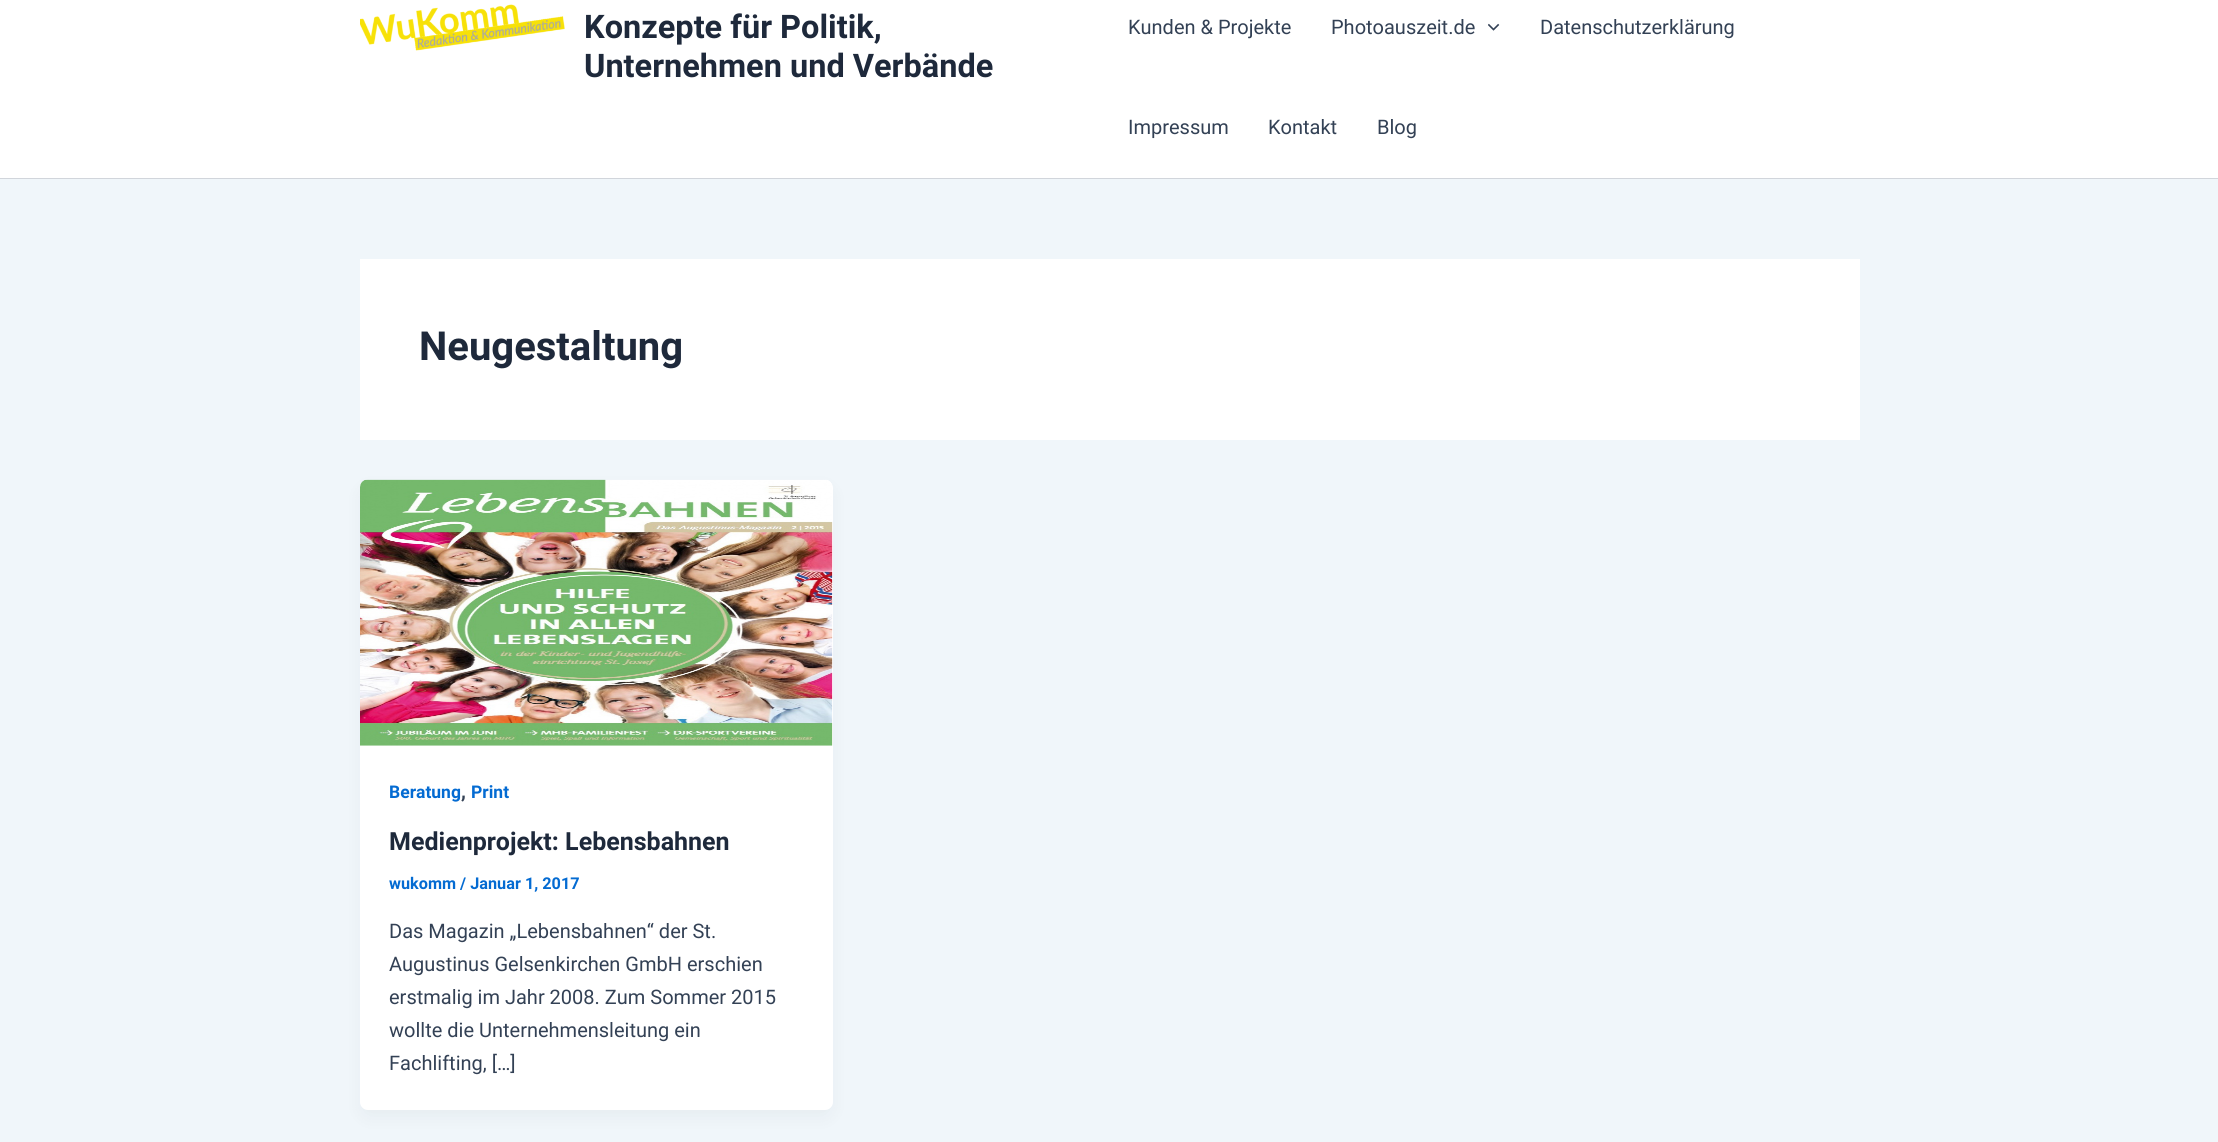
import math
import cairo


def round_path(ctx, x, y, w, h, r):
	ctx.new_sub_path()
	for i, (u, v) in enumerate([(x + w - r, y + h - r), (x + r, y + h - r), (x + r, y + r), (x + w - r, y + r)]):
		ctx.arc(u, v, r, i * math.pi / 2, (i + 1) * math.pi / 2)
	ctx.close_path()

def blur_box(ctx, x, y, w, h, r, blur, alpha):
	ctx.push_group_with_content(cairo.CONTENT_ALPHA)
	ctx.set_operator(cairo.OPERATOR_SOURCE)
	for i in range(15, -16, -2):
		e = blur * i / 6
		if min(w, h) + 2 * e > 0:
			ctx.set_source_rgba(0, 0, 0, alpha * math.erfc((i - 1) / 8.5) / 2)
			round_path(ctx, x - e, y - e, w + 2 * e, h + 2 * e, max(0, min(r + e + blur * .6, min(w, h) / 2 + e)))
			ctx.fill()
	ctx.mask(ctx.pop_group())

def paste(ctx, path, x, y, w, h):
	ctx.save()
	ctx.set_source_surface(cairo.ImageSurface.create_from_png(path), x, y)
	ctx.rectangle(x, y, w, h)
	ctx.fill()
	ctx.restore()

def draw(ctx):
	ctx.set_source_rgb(0.941, 0.961, 0.98)
	ctx.paint()
	ctx.set_source_rgb(1, 1, 1)
	ctx.rectangle(0, 0, 2218, 178)
	ctx.fill()
	ctx.set_source_rgb(0.82, 0.835, 0.859)
	ctx.rectangle(0, 178, 2218, 1)
	ctx.fill()
	paste(ctx, 'media/1.png', 360, 4, 205, 47)
	ctx.select_font_face('Roboto', cairo.FONT_SLANT_NORMAL, cairo.FONT_WEIGHT_BOLD)
	ctx.set_font_size(32.5)
	ctx.set_source_rgb(0.118, 0.161, 0.231)
	ctx.move_to(584, 38)
	ctx.show_text('Konzepte für Politik,')
	ctx.move_to(584, 77)
	ctx.show_text('Unternehmen und Verbände')
	ctx.select_font_face('Roboto')
	ctx.set_font_size(20)
	ctx.set_source_rgb(0.2, 0.255, 0.333)
	ctx.move_to(1128, 34)
	ctx.show_text('Kunden & Projekte')
	ctx.move_to(1331, 34)
	ctx.show_text('Photoauszeit.de')
	paste(ctx, 'media/2.png', 1488, 23, 12, 8)
	for x, y, s in [
		(1540, 34, 'Datenschutzerklärung'),
		(1128, 134, 'Impressum'),
		(1268, 134, 'Kontakt'),
		(1377, 134, 'Blog'),
	]:
		ctx.move_to(x, y)
		ctx.show_text(s)
	ctx.set_source_rgb(1, 1, 1)
	ctx.rectangle(360, 259, 1500, 181)
	ctx.fill()
	ctx.select_font_face('Roboto', cairo.FONT_SLANT_NORMAL, cairo.FONT_WEIGHT_BOLD)
	ctx.set_font_size(40)
	ctx.set_source_rgb(0.118, 0.161, 0.231)
	ctx.move_to(419, 360)
	ctx.show_text('Neugestaltung')
	ctx.set_source_rgb(0.063, 0.094, 0.157)
	blur_box(ctx, 363, 490, 467, 625, 5, 9.5, 0.05)
	ctx.set_source_rgb(1, 1, 1)
	round_path(ctx, 360, 480, 473, 630, 8)
	ctx.fill()
	paste(ctx, 'media/3.png', 360, 479, 473, 267)
	ctx.set_font_size(17.5)
	ctx.set_source_rgb(0.016, 0.42, 0.824)
	ctx.move_to(389, 798)
	ctx.show_text('Beratung')
	ctx.set_font_size(20)
	ctx.set_source_rgb(0.2, 0.255, 0.333)
	ctx.move_to(461, 798)
	ctx.show_text(',')
	ctx.set_font_size(17.5)
	ctx.set_source_rgb(0.016, 0.42, 0.824)
	ctx.move_to(471, 798)
	ctx.show_text('Print')
	ctx.set_font_size(25)
	ctx.set_source_rgb(0.118, 0.161, 0.231)
	ctx.move_to(389, 850)
	ctx.show_text('Medienprojekt: Lebensbahnen')
	ctx.set_font_size(16.25)
	ctx.set_source_rgb(0.016, 0.42, 0.824)
	ctx.move_to(389, 889)
	ctx.show_text('wukomm / Januar 1, 2017')
	ctx.select_font_face('Roboto')
	ctx.set_font_size(20)
	ctx.set_source_rgb(0.2, 0.255, 0.333)
	for x, y, s in [
		(389, 938, 'Das Magazin „Lebensbahnen“ der St.'),
		(389, 971, 'Augustinus Gelsenkirchen GmbH erschien'),
		(389, 1004, 'erstmalig im Jahr 2008. Zum Sommer 2015'),
		(389, 1037, 'wollte die Unternehmensleitung ein'),
		(389, 1070, 'Fachlifting, […]'),
	]:
		ctx.move_to(x, y)
		ctx.show_text(s)


surface = cairo.ImageSurface(cairo.FORMAT_RGB24, 2218, 1142)
ctx = cairo.Context(surface)
options = cairo.FontOptions()
options.set_hint_metrics(cairo.HINT_METRICS_OFF)
options.set_hint_style(cairo.HINT_STYLE_NONE)
ctx.set_font_options(options)
ctx.set_miter_limit(4)
draw(ctx)
surface.write_to_png('image.png')
